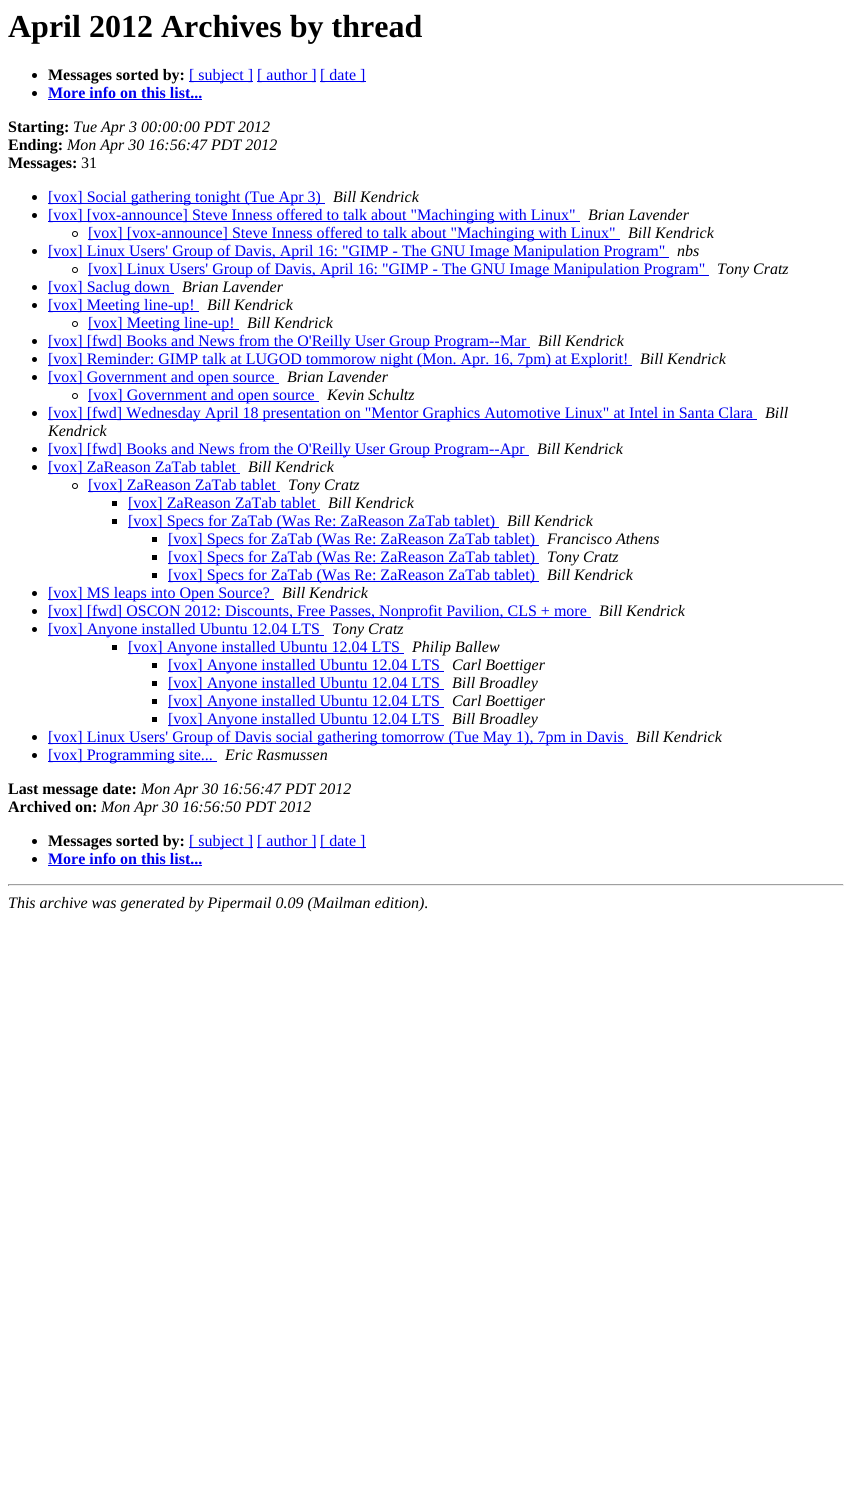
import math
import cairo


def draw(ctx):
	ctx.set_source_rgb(1, 1, 1)
	ctx.paint()
	ctx.select_font_face('Liberation Serif', cairo.FONT_SLANT_NORMAL, cairo.FONT_WEIGHT_BOLD)
	ctx.set_font_size(32)
	ctx.set_source_rgb(0, 0, 0)
	ctx.move_to(8, 37)
	ctx.show_text('April 2012 Archives by thread')
	ctx.new_path()
	ctx.arc(34.5, 75.5, 2.5, 0, 2 * math.pi)
	ctx.fill()
	ctx.set_font_size(16)
	ctx.move_to(48, 80)
	ctx.show_text('Messages sorted by:')
	ctx.set_source_rgb(0, 0, 0.933)
	ctx.rectangle(189, 81, 64, 1)
	ctx.fill()
	ctx.select_font_face('Liberation Serif')
	ctx.move_to(189, 80)
	ctx.show_text('[ subject ]')
	ctx.rectangle(257, 81, 59, 1)
	ctx.fill()
	ctx.move_to(257, 80)
	ctx.show_text('[ author ]')
	ctx.rectangle(320, 81, 46, 1)
	ctx.fill()
	ctx.move_to(320, 80)
	ctx.show_text('[ date ]')
	ctx.set_source_rgb(0, 0, 0)
	ctx.new_path()
	ctx.arc(34.5, 93.5, 2.5, 0, 2 * math.pi)
	ctx.fill()
	ctx.select_font_face('Liberation Serif', cairo.FONT_SLANT_NORMAL, cairo.FONT_WEIGHT_BOLD)
	ctx.set_source_rgb(0, 0, 0.933)
	ctx.move_to(48, 98)
	ctx.show_text('More info on this list...')
	ctx.rectangle(48, 99, 154, 1)
	ctx.fill()
	ctx.set_source_rgb(0, 0, 0)
	ctx.move_to(8, 132)
	ctx.show_text('Starting:')
	ctx.select_font_face('Liberation Serif', cairo.FONT_SLANT_ITALIC)
	ctx.move_to(73, 132)
	ctx.show_text('Tue Apr 3 00:00:00 PDT 2012')
	ctx.select_font_face('Liberation Serif', cairo.FONT_SLANT_NORMAL, cairo.FONT_WEIGHT_BOLD)
	ctx.move_to(8, 150)
	ctx.show_text('Ending:')
	ctx.select_font_face('Liberation Serif', cairo.FONT_SLANT_ITALIC)
	ctx.move_to(67, 150)
	ctx.show_text('Mon Apr 30 16:56:47 PDT 2012')
	ctx.select_font_face('Liberation Serif', cairo.FONT_SLANT_NORMAL, cairo.FONT_WEIGHT_BOLD)
	ctx.move_to(8, 168)
	ctx.show_text('Messages:')
	ctx.select_font_face('Liberation Serif')
	ctx.move_to(81, 168)
	ctx.show_text('31')
	ctx.new_path()
	ctx.arc(34.5, 197.5, 2.5, 0, 2 * math.pi)
	ctx.fill()
	ctx.set_source_rgb(0, 0, 0.933)
	ctx.rectangle(48, 203, 277, 1)
	ctx.fill()
	ctx.move_to(48, 202)
	ctx.show_text('[vox] Social gathering tonight (Tue Apr 3)')
	ctx.select_font_face('Liberation Serif', cairo.FONT_SLANT_ITALIC)
	ctx.set_source_rgb(0, 0, 0)
	ctx.move_to(333, 202)
	ctx.show_text('Bill Kendrick')
	ctx.new_path()
	ctx.arc(34.5, 215.5, 2.5, 0, 2 * math.pi)
	ctx.fill()
	ctx.set_source_rgb(0, 0, 0.933)
	ctx.rectangle(48, 221, 532, 1)
	ctx.fill()
	ctx.select_font_face('Liberation Serif')
	ctx.move_to(48, 220)
	ctx.show_text('[vox] [vox-announce] Steve Inness offered to talk about "Machinging with Linux"')
	ctx.select_font_face('Liberation Serif', cairo.FONT_SLANT_ITALIC)
	ctx.set_source_rgb(0, 0, 0)
	ctx.move_to(588, 220)
	ctx.show_text('Brian Lavender')
	ctx.new_path()
	ctx.arc(75, 234, 2.5, 0, 2 * math.pi)
	ctx.set_line_width(1)
	ctx.stroke()
	ctx.set_source_rgb(0, 0, 0.933)
	ctx.rectangle(88, 239, 532, 1)
	ctx.fill()
	ctx.select_font_face('Liberation Serif')
	ctx.move_to(88, 238)
	ctx.show_text('[vox] [vox-announce] Steve Inness offered to talk about "Machinging with Linux"')
	ctx.select_font_face('Liberation Serif', cairo.FONT_SLANT_ITALIC)
	ctx.set_source_rgb(0, 0, 0)
	ctx.move_to(628, 238)
	ctx.show_text('Bill Kendrick')
	ctx.new_path()
	ctx.arc(34.5, 251.5, 2.5, 0, 2 * math.pi)
	ctx.fill()
	ctx.set_source_rgb(0, 0, 0.933)
	ctx.rectangle(48, 257, 621, 1)
	ctx.fill()
	ctx.select_font_face('Liberation Serif')
	ctx.move_to(48, 256)
	ctx.show_text('[vox] Linux Users\' Group of Davis, April 16: "GIMP - The GNU Image Manipulation Program"')
	ctx.select_font_face('Liberation Serif', cairo.FONT_SLANT_ITALIC)
	ctx.set_source_rgb(0, 0, 0)
	ctx.move_to(677, 256)
	ctx.show_text('nbs')
	ctx.new_path()
	ctx.arc(75, 270, 2.5, 0, 2 * math.pi)
	ctx.stroke()
	ctx.set_source_rgb(0, 0, 0.933)
	ctx.rectangle(88, 275, 621, 1)
	ctx.fill()
	ctx.select_font_face('Liberation Serif')
	ctx.move_to(88, 274)
	ctx.show_text('[vox] Linux Users\' Group of Davis, April 16: "GIMP - The GNU Image Manipulation Program"')
	ctx.select_font_face('Liberation Serif', cairo.FONT_SLANT_ITALIC)
	ctx.set_source_rgb(0, 0, 0)
	ctx.move_to(717, 274)
	ctx.show_text('Tony Cratz')
	ctx.new_path()
	ctx.arc(34.5, 287.5, 2.5, 0, 2 * math.pi)
	ctx.fill()
	ctx.set_source_rgb(0, 0, 0.933)
	ctx.rectangle(48, 293, 126, 1)
	ctx.fill()
	ctx.select_font_face('Liberation Serif')
	ctx.move_to(48, 292)
	ctx.show_text('[vox] Saclug down')
	ctx.select_font_face('Liberation Serif', cairo.FONT_SLANT_ITALIC)
	ctx.set_source_rgb(0, 0, 0)
	ctx.move_to(182, 292)
	ctx.show_text('Brian Lavender')
	ctx.new_path()
	ctx.arc(34.5, 305.5, 2.5, 0, 2 * math.pi)
	ctx.fill()
	ctx.set_source_rgb(0, 0, 0.933)
	ctx.rectangle(48, 311, 151, 1)
	ctx.fill()
	ctx.select_font_face('Liberation Serif')
	ctx.move_to(48, 310)
	ctx.show_text('[vox] Meeting line-up!')
	ctx.select_font_face('Liberation Serif', cairo.FONT_SLANT_ITALIC)
	ctx.set_source_rgb(0, 0, 0)
	ctx.move_to(207, 310)
	ctx.show_text('Bill Kendrick')
	ctx.new_path()
	ctx.arc(75, 324, 2.5, 0, 2 * math.pi)
	ctx.stroke()
	ctx.set_source_rgb(0, 0, 0.933)
	ctx.rectangle(88, 329, 151, 1)
	ctx.fill()
	ctx.select_font_face('Liberation Serif')
	ctx.move_to(88, 328)
	ctx.show_text('[vox] Meeting line-up!')
	ctx.select_font_face('Liberation Serif', cairo.FONT_SLANT_ITALIC)
	ctx.set_source_rgb(0, 0, 0)
	ctx.move_to(247, 328)
	ctx.show_text('Bill Kendrick')
	ctx.new_path()
	ctx.arc(34.5, 341.5, 2.5, 0, 2 * math.pi)
	ctx.fill()
	ctx.set_source_rgb(0, 0, 0.933)
	ctx.rectangle(48, 347, 482, 1)
	ctx.fill()
	ctx.select_font_face('Liberation Serif')
	ctx.move_to(48, 346)
	ctx.show_text('[vox] [fwd] Books and News from the O\'Reilly User Group Program--Mar')
	ctx.select_font_face('Liberation Serif', cairo.FONT_SLANT_ITALIC)
	ctx.set_source_rgb(0, 0, 0)
	ctx.move_to(538, 346)
	ctx.show_text('Bill Kendrick')
	ctx.new_path()
	ctx.arc(34.5, 359.5, 2.5, 0, 2 * math.pi)
	ctx.fill()
	ctx.set_source_rgb(0, 0, 0.933)
	ctx.rectangle(48, 365, 584, 1)
	ctx.fill()
	ctx.select_font_face('Liberation Serif')
	ctx.move_to(48, 364)
	ctx.show_text('[vox] Reminder: GIMP talk at LUGOD tommorow night (Mon. Apr. 16, 7pm) at Explorit!')
	ctx.select_font_face('Liberation Serif', cairo.FONT_SLANT_ITALIC)
	ctx.set_source_rgb(0, 0, 0)
	ctx.move_to(640, 364)
	ctx.show_text('Bill Kendrick')
	ctx.new_path()
	ctx.arc(34.5, 377.5, 2.5, 0, 2 * math.pi)
	ctx.fill()
	ctx.set_source_rgb(0, 0, 0.933)
	ctx.rectangle(48, 383, 231, 1)
	ctx.fill()
	ctx.select_font_face('Liberation Serif')
	ctx.move_to(48, 382)
	ctx.show_text('[vox] Government and open source')
	ctx.select_font_face('Liberation Serif', cairo.FONT_SLANT_ITALIC)
	ctx.set_source_rgb(0, 0, 0)
	ctx.move_to(287, 382)
	ctx.show_text('Brian Lavender')
	ctx.new_path()
	ctx.arc(75, 396, 2.5, 0, 2 * math.pi)
	ctx.stroke()
	ctx.set_source_rgb(0, 0, 0.933)
	ctx.rectangle(88, 401, 231, 1)
	ctx.fill()
	ctx.select_font_face('Liberation Serif')
	ctx.move_to(88, 400)
	ctx.show_text('[vox] Government and open source')
	ctx.select_font_face('Liberation Serif', cairo.FONT_SLANT_ITALIC)
	ctx.set_source_rgb(0, 0, 0)
	ctx.move_to(327, 400)
	ctx.show_text('Kevin Schultz')
	ctx.new_path()
	ctx.arc(34.5, 413.5, 2.5, 0, 2 * math.pi)
	ctx.fill()
	ctx.set_source_rgb(0, 0, 0.933)
	ctx.rectangle(48, 419, 709, 1)
	ctx.fill()
	ctx.select_font_face('Liberation Serif')
	ctx.move_to(48, 418)
	ctx.show_text('[vox] [fwd] Wednesday April 18 presentation on "Mentor Graphics Automotive Linux" at Intel in Santa Clara')
	ctx.select_font_face('Liberation Serif', cairo.FONT_SLANT_ITALIC)
	ctx.set_source_rgb(0, 0, 0)
	ctx.move_to(765, 418)
	ctx.show_text('Bill')
	ctx.move_to(48, 436)
	ctx.show_text('Kendrick')
	ctx.new_path()
	ctx.arc(34.5, 449.5, 2.5, 0, 2 * math.pi)
	ctx.fill()
	ctx.set_source_rgb(0, 0, 0.933)
	ctx.rectangle(48, 455, 481, 1)
	ctx.fill()
	ctx.select_font_face('Liberation Serif')
	ctx.move_to(48, 454)
	ctx.show_text('[vox] [fwd] Books and News from the O\'Reilly User Group Program--Apr')
	ctx.select_font_face('Liberation Serif', cairo.FONT_SLANT_ITALIC)
	ctx.set_source_rgb(0, 0, 0)
	ctx.move_to(537, 454)
	ctx.show_text('Bill Kendrick')
	ctx.new_path()
	ctx.arc(34.5, 467.5, 2.5, 0, 2 * math.pi)
	ctx.fill()
	ctx.set_source_rgb(0, 0, 0.933)
	ctx.rectangle(48, 473, 192, 1)
	ctx.fill()
	ctx.select_font_face('Liberation Serif')
	ctx.move_to(48, 472)
	ctx.show_text('[vox] ZaReason ZaTab tablet')
	ctx.select_font_face('Liberation Serif', cairo.FONT_SLANT_ITALIC)
	ctx.set_source_rgb(0, 0, 0)
	ctx.move_to(248, 472)
	ctx.show_text('Bill Kendrick')
	ctx.new_path()
	ctx.arc(75, 486, 2.5, 0, 2 * math.pi)
	ctx.stroke()
	ctx.set_source_rgb(0, 0, 0.933)
	ctx.rectangle(88, 491, 192, 1)
	ctx.fill()
	ctx.select_font_face('Liberation Serif')
	ctx.move_to(88, 490)
	ctx.show_text('[vox] ZaReason ZaTab tablet')
	ctx.select_font_face('Liberation Serif', cairo.FONT_SLANT_ITALIC)
	ctx.set_source_rgb(0, 0, 0)
	ctx.move_to(288, 490)
	ctx.show_text('Tony Cratz')
	ctx.rectangle(112, 501, 5, 5)
	ctx.fill()
	ctx.set_source_rgb(0, 0, 0.933)
	ctx.rectangle(128, 509, 192, 1)
	ctx.fill()
	ctx.select_font_face('Liberation Serif')
	ctx.move_to(128, 508)
	ctx.show_text('[vox] ZaReason ZaTab tablet')
	ctx.select_font_face('Liberation Serif', cairo.FONT_SLANT_ITALIC)
	ctx.set_source_rgb(0, 0, 0)
	ctx.move_to(328, 508)
	ctx.show_text('Bill Kendrick')
	ctx.rectangle(112, 519, 5, 5)
	ctx.fill()
	ctx.set_source_rgb(0, 0, 0.933)
	ctx.rectangle(128, 527, 371, 1)
	ctx.fill()
	ctx.select_font_face('Liberation Serif')
	ctx.move_to(128, 526)
	ctx.show_text('[vox] Specs for ZaTab (Was Re: ZaReason ZaTab tablet)')
	ctx.select_font_face('Liberation Serif', cairo.FONT_SLANT_ITALIC)
	ctx.set_source_rgb(0, 0, 0)
	ctx.move_to(507, 526)
	ctx.show_text('Bill Kendrick')
	ctx.rectangle(152, 537, 5, 5)
	ctx.fill()
	ctx.set_source_rgb(0, 0, 0.933)
	ctx.rectangle(168, 545, 371, 1)
	ctx.fill()
	ctx.select_font_face('Liberation Serif')
	ctx.move_to(168, 544)
	ctx.show_text('[vox] Specs for ZaTab (Was Re: ZaReason ZaTab tablet)')
	ctx.select_font_face('Liberation Serif', cairo.FONT_SLANT_ITALIC)
	ctx.set_source_rgb(0, 0, 0)
	ctx.move_to(547, 544)
	ctx.show_text('Francisco Athens')
	ctx.rectangle(152, 555, 5, 5)
	ctx.fill()
	ctx.set_source_rgb(0, 0, 0.933)
	ctx.rectangle(168, 563, 371, 1)
	ctx.fill()
	ctx.select_font_face('Liberation Serif')
	ctx.move_to(168, 562)
	ctx.show_text('[vox] Specs for ZaTab (Was Re: ZaReason ZaTab tablet)')
	ctx.select_font_face('Liberation Serif', cairo.FONT_SLANT_ITALIC)
	ctx.set_source_rgb(0, 0, 0)
	ctx.move_to(547, 562)
	ctx.show_text('Tony Cratz')
	ctx.rectangle(152, 573, 5, 5)
	ctx.fill()
	ctx.set_source_rgb(0, 0, 0.933)
	ctx.rectangle(168, 581, 371, 1)
	ctx.fill()
	ctx.select_font_face('Liberation Serif')
	ctx.move_to(168, 580)
	ctx.show_text('[vox] Specs for ZaTab (Was Re: ZaReason ZaTab tablet)')
	ctx.select_font_face('Liberation Serif', cairo.FONT_SLANT_ITALIC)
	ctx.set_source_rgb(0, 0, 0)
	ctx.move_to(547, 580)
	ctx.show_text('Bill Kendrick')
	ctx.new_path()
	ctx.arc(34.5, 593.5, 2.5, 0, 2 * math.pi)
	ctx.fill()
	ctx.set_source_rgb(0, 0, 0.933)
	ctx.rectangle(48, 599, 226, 1)
	ctx.fill()
	ctx.select_font_face('Liberation Serif')
	ctx.move_to(48, 598)
	ctx.show_text('[vox] MS leaps into Open Source?')
	ctx.select_font_face('Liberation Serif', cairo.FONT_SLANT_ITALIC)
	ctx.set_source_rgb(0, 0, 0)
	ctx.move_to(282, 598)
	ctx.show_text('Bill Kendrick')
	ctx.new_path()
	ctx.arc(34.5, 611.5, 2.5, 0, 2 * math.pi)
	ctx.fill()
	ctx.set_source_rgb(0, 0, 0.933)
	ctx.rectangle(48, 617, 543, 1)
	ctx.fill()
	ctx.select_font_face('Liberation Serif')
	ctx.move_to(48, 616)
	ctx.show_text('[vox] [fwd] OSCON 2012: Discounts, Free Passes, Nonprofit Pavilion, CLS + more')
	ctx.select_font_face('Liberation Serif', cairo.FONT_SLANT_ITALIC)
	ctx.set_source_rgb(0, 0, 0)
	ctx.move_to(599, 616)
	ctx.show_text('Bill Kendrick')
	ctx.new_path()
	ctx.arc(34.5, 629.5, 2.5, 0, 2 * math.pi)
	ctx.fill()
	ctx.set_source_rgb(0, 0, 0.933)
	ctx.rectangle(48, 635, 276, 1)
	ctx.fill()
	ctx.select_font_face('Liberation Serif')
	ctx.move_to(48, 634)
	ctx.show_text('[vox] Anyone installed Ubuntu 12.04 LTS')
	ctx.select_font_face('Liberation Serif', cairo.FONT_SLANT_ITALIC)
	ctx.set_source_rgb(0, 0, 0)
	ctx.move_to(332, 634)
	ctx.show_text('Tony Cratz')
	ctx.rectangle(112, 645, 5, 5)
	ctx.fill()
	ctx.set_source_rgb(0, 0, 0.933)
	ctx.rectangle(128, 653, 276, 1)
	ctx.fill()
	ctx.select_font_face('Liberation Serif')
	ctx.move_to(128, 652)
	ctx.show_text('[vox] Anyone installed Ubuntu 12.04 LTS')
	ctx.select_font_face('Liberation Serif', cairo.FONT_SLANT_ITALIC)
	ctx.set_source_rgb(0, 0, 0)
	ctx.move_to(412, 652)
	ctx.show_text('Philip Ballew')
	ctx.rectangle(152, 663, 5, 5)
	ctx.fill()
	ctx.set_source_rgb(0, 0, 0.933)
	ctx.rectangle(168, 671, 276, 1)
	ctx.fill()
	ctx.select_font_face('Liberation Serif')
	ctx.move_to(168, 670)
	ctx.show_text('[vox] Anyone installed Ubuntu 12.04 LTS')
	ctx.select_font_face('Liberation Serif', cairo.FONT_SLANT_ITALIC)
	ctx.set_source_rgb(0, 0, 0)
	ctx.move_to(452, 670)
	ctx.show_text('Carl Boettiger')
	ctx.rectangle(152, 681, 5, 5)
	ctx.fill()
	ctx.set_source_rgb(0, 0, 0.933)
	ctx.rectangle(168, 689, 276, 1)
	ctx.fill()
	ctx.select_font_face('Liberation Serif')
	ctx.move_to(168, 688)
	ctx.show_text('[vox] Anyone installed Ubuntu 12.04 LTS')
	ctx.select_font_face('Liberation Serif', cairo.FONT_SLANT_ITALIC)
	ctx.set_source_rgb(0, 0, 0)
	ctx.move_to(452, 688)
	ctx.show_text('Bill Broadley')
	ctx.rectangle(152, 699, 5, 5)
	ctx.fill()
	ctx.set_source_rgb(0, 0, 0.933)
	ctx.rectangle(168, 707, 276, 1)
	ctx.fill()
	ctx.select_font_face('Liberation Serif')
	ctx.move_to(168, 706)
	ctx.show_text('[vox] Anyone installed Ubuntu 12.04 LTS')
	ctx.select_font_face('Liberation Serif', cairo.FONT_SLANT_ITALIC)
	ctx.set_source_rgb(0, 0, 0)
	ctx.move_to(452, 706)
	ctx.show_text('Carl Boettiger')
	ctx.rectangle(152, 717, 5, 5)
	ctx.fill()
	ctx.set_source_rgb(0, 0, 0.933)
	ctx.rectangle(168, 725, 276, 1)
	ctx.fill()
	ctx.select_font_face('Liberation Serif')
	ctx.move_to(168, 724)
	ctx.show_text('[vox] Anyone installed Ubuntu 12.04 LTS')
	ctx.select_font_face('Liberation Serif', cairo.FONT_SLANT_ITALIC)
	ctx.set_source_rgb(0, 0, 0)
	ctx.move_to(452, 724)
	ctx.show_text('Bill Broadley')
	ctx.new_path()
	ctx.arc(34.5, 737.5, 2.5, 0, 2 * math.pi)
	ctx.fill()
	ctx.set_source_rgb(0, 0, 0.933)
	ctx.rectangle(48, 743, 580, 1)
	ctx.fill()
	ctx.select_font_face('Liberation Serif')
	ctx.move_to(48, 742)
	ctx.show_text('[vox] Linux Users\' Group of Davis social gathering tomorrow (Tue May 1), 7pm in Davis')
	ctx.select_font_face('Liberation Serif', cairo.FONT_SLANT_ITALIC)
	ctx.set_source_rgb(0, 0, 0)
	ctx.move_to(636, 742)
	ctx.show_text('Bill Kendrick')
	ctx.new_path()
	ctx.arc(34.5, 755.5, 2.5, 0, 2 * math.pi)
	ctx.fill()
	ctx.set_source_rgb(0, 0, 0.933)
	ctx.rectangle(48, 761, 169, 1)
	ctx.fill()
	ctx.select_font_face('Liberation Serif')
	ctx.move_to(48, 760)
	ctx.show_text('[vox] Programming site...')
	ctx.select_font_face('Liberation Serif', cairo.FONT_SLANT_ITALIC)
	ctx.set_source_rgb(0, 0, 0)
	ctx.move_to(225, 760)
	ctx.show_text('Eric Rasmussen')
	ctx.select_font_face('Liberation Serif', cairo.FONT_SLANT_NORMAL, cairo.FONT_WEIGHT_BOLD)
	ctx.move_to(8, 794)
	ctx.show_text('Last message date:')
	ctx.select_font_face('Liberation Serif', cairo.FONT_SLANT_ITALIC)
	ctx.move_to(141, 794)
	ctx.show_text('Mon Apr 30 16:56:47 PDT 2012')
	ctx.select_font_face('Liberation Serif', cairo.FONT_SLANT_NORMAL, cairo.FONT_WEIGHT_BOLD)
	ctx.move_to(8, 812)
	ctx.show_text('Archived on:')
	ctx.select_font_face('Liberation Serif', cairo.FONT_SLANT_ITALIC)
	ctx.move_to(101, 812)
	ctx.show_text('Mon Apr 30 16:56:50 PDT 2012')
	ctx.new_path()
	ctx.arc(34.5, 841.5, 2.5, 0, 2 * math.pi)
	ctx.fill()
	ctx.select_font_face('Liberation Serif', cairo.FONT_SLANT_NORMAL, cairo.FONT_WEIGHT_BOLD)
	ctx.move_to(48, 846)
	ctx.show_text('Messages sorted by:')
	ctx.set_source_rgb(0, 0, 0.933)
	ctx.rectangle(189, 847, 64, 1)
	ctx.fill()
	ctx.select_font_face('Liberation Serif')
	ctx.move_to(189, 846)
	ctx.show_text('[ subject ]')
	ctx.rectangle(257, 847, 59, 1)
	ctx.fill()
	ctx.move_to(257, 846)
	ctx.show_text('[ author ]')
	ctx.rectangle(320, 847, 46, 1)
	ctx.fill()
	ctx.move_to(320, 846)
	ctx.show_text('[ date ]')
	ctx.set_source_rgb(0, 0, 0)
	ctx.new_path()
	ctx.arc(34.5, 859.5, 2.5, 0, 2 * math.pi)
	ctx.fill()
	ctx.select_font_face('Liberation Serif', cairo.FONT_SLANT_NORMAL, cairo.FONT_WEIGHT_BOLD)
	ctx.set_source_rgb(0, 0, 0.933)
	ctx.move_to(48, 864)
	ctx.show_text('More info on this list...')
	ctx.rectangle(48, 865, 154, 1)
	ctx.fill()
	ctx.set_source_rgb(0.624, 0.624, 0.624)
	ctx.rectangle(8, 884, 836, 1)
	ctx.fill()
	ctx.set_source_rgb(0.933, 0.933, 0.933)
	ctx.rectangle(843, 884, 1, 2)
	ctx.rectangle(8, 885, 836, 1)
	ctx.fill()
	ctx.set_source_rgb(0.624, 0.624, 0.624)
	ctx.rectangle(8, 884, 1, 2)
	ctx.fill()
	ctx.select_font_face('Liberation Serif', cairo.FONT_SLANT_ITALIC)
	ctx.set_source_rgb(0, 0, 0)
	ctx.move_to(8, 908)
	ctx.show_text('This archive was generated by Pipermail 0.09 (Mailman edition).')


surface = cairo.ImageSurface(cairo.FORMAT_RGB24, 852, 1487)
ctx = cairo.Context(surface)
options = cairo.FontOptions()
options.set_hint_metrics(cairo.HINT_METRICS_OFF)
options.set_hint_style(cairo.HINT_STYLE_NONE)
ctx.set_font_options(options)
ctx.set_miter_limit(4)
draw(ctx)
surface.write_to_png('image.png')
